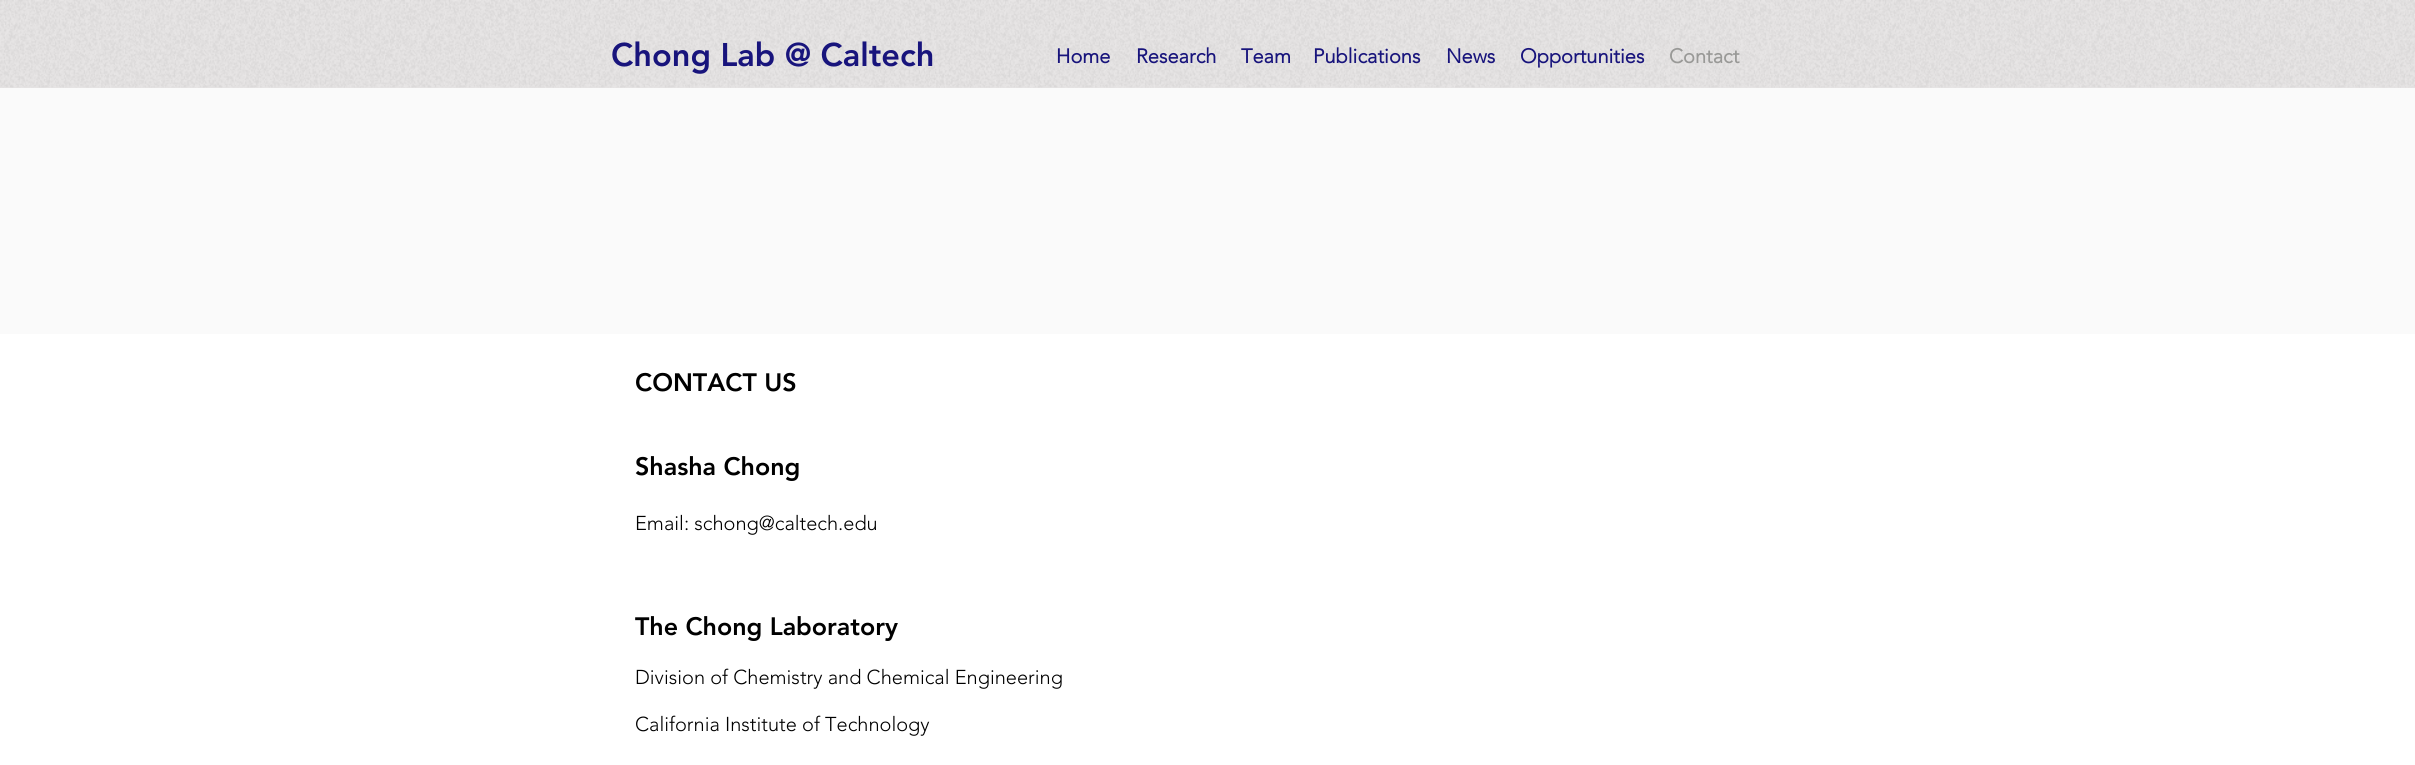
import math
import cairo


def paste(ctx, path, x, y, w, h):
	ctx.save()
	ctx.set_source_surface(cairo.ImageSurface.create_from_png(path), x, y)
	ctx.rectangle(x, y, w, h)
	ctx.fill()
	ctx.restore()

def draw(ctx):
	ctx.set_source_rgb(1, 1, 1)
	ctx.paint()
	ctx.set_source_rgb(0.91, 0.902, 0.902)
	ctx.rectangle(0, 0, 2415, 88)
	ctx.fill()
	paste(ctx, 'media/1.png', 0, 0, 2415, 88)
	ctx.select_font_face('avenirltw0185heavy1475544 Black')
	ctx.set_font_size(32.5)
	ctx.set_source_rgb(0.094, 0.082, 0.486)
	ctx.move_to(611, 66)
	ctx.show_text('Chong Lab @ Caltech')
	ctx.select_font_face('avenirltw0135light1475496', cairo.FONT_SLANT_NORMAL, cairo.FONT_WEIGHT_BOLD)
	ctx.set_font_size(20)
	for x, y, s in [
		(1056, 63, 'Home'),
		(1136, 63, 'Research'),
		(1241, 63, 'Team'),
		(1313, 63, 'Publications'),
		(1446, 63, 'News'),
		(1520, 63, 'Opportunities'),
	]:
		ctx.move_to(x, y)
		ctx.show_text(s)
	ctx.set_source_rgb(0.6, 0.6, 0.592)
	ctx.move_to(1669, 63)
	ctx.show_text('Contact')
	ctx.set_source_rgb(0.98, 0.98, 0.98)
	ctx.rectangle(0, 88, 2415, 246)
	ctx.fill()
	ctx.select_font_face('avenirltw0185heavy1475544 Black')
	ctx.set_font_size(25)
	ctx.set_source_rgb(0, 0, 0)
	ctx.move_to(635, 391)
	ctx.show_text('CONTACT US')
	ctx.move_to(635, 475)
	ctx.show_text('Shasha Chong')
	ctx.select_font_face('avenirltw0135light1475496 Light')
	ctx.set_font_size(20)
	ctx.move_to(635, 530)
	ctx.show_text('Email: schong@caltech.edu')
	ctx.select_font_face('avenirltw0185heavy1475544 Black')
	ctx.set_font_size(25)
	ctx.move_to(635, 635)
	ctx.show_text('The Chong Laboratory')
	ctx.select_font_face('avenirltw0135light1475496 Light')
	ctx.set_font_size(20)
	ctx.move_to(635, 684)
	ctx.show_text('Division of Chemistry and Chemical Engineering')
	ctx.move_to(635, 731)
	ctx.show_text('California Institute of Technology')


surface = cairo.ImageSurface(cairo.FORMAT_RGB24, 2415, 765)
ctx = cairo.Context(surface)
options = cairo.FontOptions()
options.set_hint_metrics(cairo.HINT_METRICS_OFF)
options.set_hint_style(cairo.HINT_STYLE_NONE)
ctx.set_font_options(options)
ctx.set_miter_limit(4)
draw(ctx)
surface.write_to_png('image.png')
